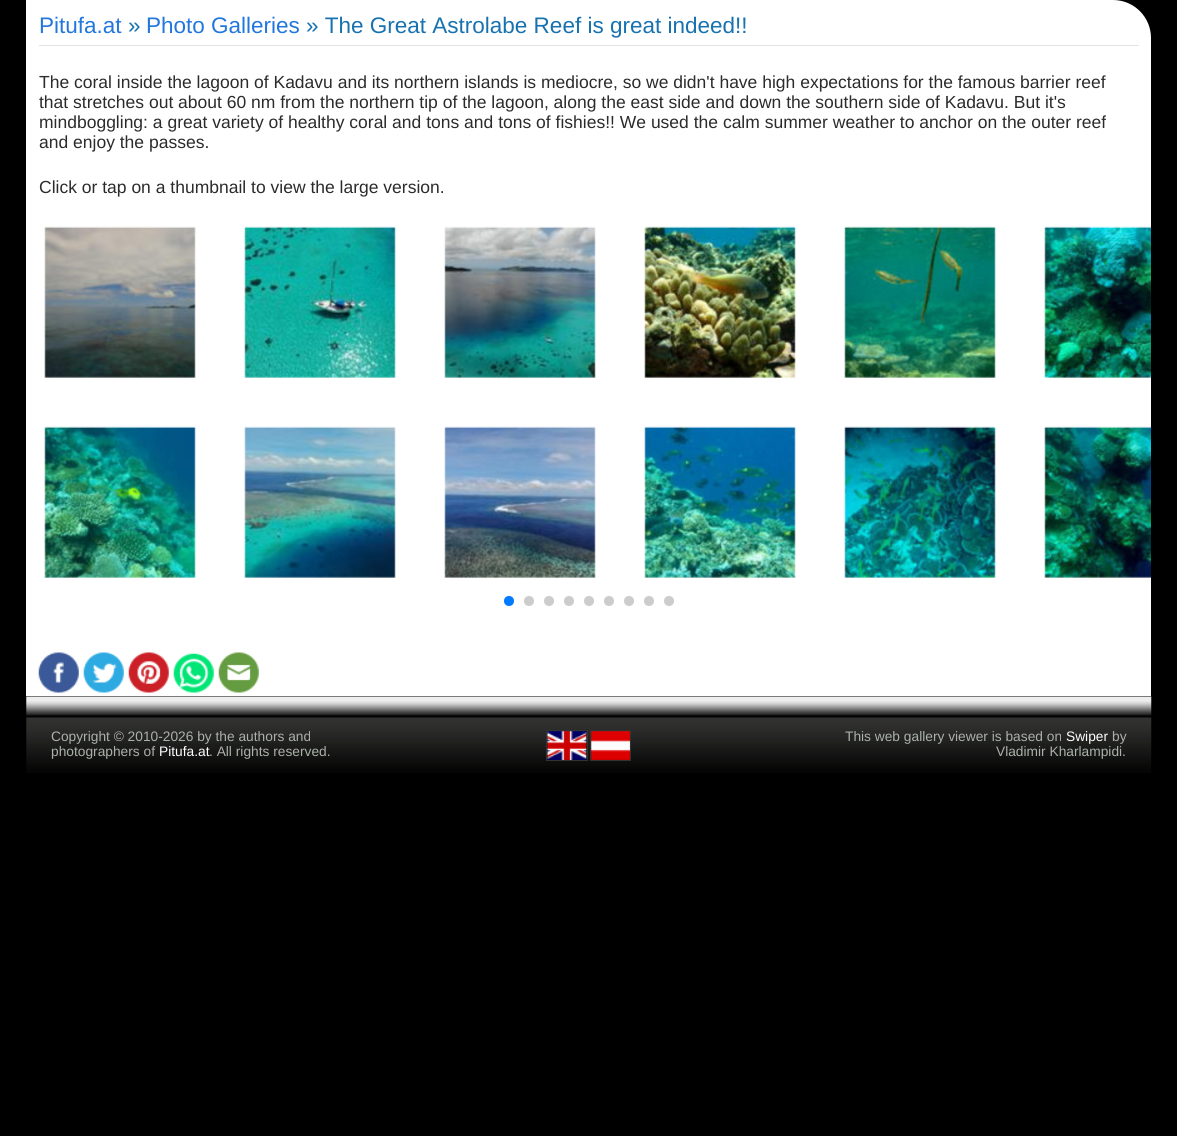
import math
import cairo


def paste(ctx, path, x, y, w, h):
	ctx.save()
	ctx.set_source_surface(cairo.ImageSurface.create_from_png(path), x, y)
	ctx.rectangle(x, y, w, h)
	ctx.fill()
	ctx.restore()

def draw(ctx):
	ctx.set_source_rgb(0, 0, 0)
	ctx.paint()
	ctx.set_source_rgb(1, 1, 1)
	ctx.new_path()
	ctx.move_to(26, 0)
	ctx.line_to(1113, 0)
	ctx.curve_to(1134, 0, 1151, 17, 1151, 38)
	ctx.line_to(1151, 696)
	ctx.line_to(26, 696)
	ctx.close_path()
	ctx.fill()
	ctx.set_source_rgb(0.89, 0.89, 0.89)
	ctx.rectangle(39, 45, 1100, 1)
	ctx.fill()
	ctx.select_font_face('Liberation Sans')
	ctx.set_font_size(22.5)
	ctx.set_source_rgb(0.133, 0.467, 0.867)
	ctx.move_to(39, 33)
	ctx.show_text('Pitufa.at')
	ctx.set_source_rgb(0.09, 0.447, 0.686)
	ctx.move_to(128, 33)
	ctx.show_text('»')
	ctx.set_source_rgb(0.133, 0.467, 0.867)
	ctx.move_to(146, 33)
	ctx.show_text('Photo Galleries')
	ctx.set_source_rgb(0.09, 0.447, 0.686)
	ctx.move_to(306, 33)
	ctx.show_text('» The Great Astrolabe Reef is great indeed!!')
	ctx.set_font_size(17.5)
	ctx.set_source_rgb(0.173, 0.169, 0.169)
	for x, y, s in [
		(39, 88, 'The coral inside the lagoon of Kadavu and its northern islands is mediocre, so we didn\'t have high expectations for the famous barrier reef'),
		(39, 108, 'that stretches out about 60 nm from the northern tip of the lagoon, along the east side and down the southern side of Kadavu. But it\'s'),
		(39, 128, 'mindboggling: a great variety of healthy coral and tons and tons of fishies!! We used the calm summer weather to anchor on the outer reef'),
		(39, 148, 'and enjoy the passes.'),
		(39, 193, 'Click or tap on a thumbnail to view the large version.'),
	]:
		ctx.move_to(x, y)
		ctx.show_text(s)
	paste(ctx, 'media/1.png', 44, 226, 152, 152)
	paste(ctx, 'media/2.png', 244, 226, 152, 152)
	paste(ctx, 'media/3.png', 444, 226, 152, 152)
	paste(ctx, 'media/4.png', 644, 226, 152, 152)
	paste(ctx, 'media/5.png', 844, 226, 152, 152)
	paste(ctx, 'media/6.png', 1044, 226, 107, 152)
	paste(ctx, 'media/7.png', 44, 426, 152, 152)
	paste(ctx, 'media/8.png', 244, 426, 152, 152)
	paste(ctx, 'media/9.png', 444, 426, 152, 152)
	paste(ctx, 'media/10.png', 644, 426, 152, 152)
	paste(ctx, 'media/11.png', 844, 426, 152, 152)
	paste(ctx, 'media/12.png', 1044, 426, 107, 152)
	ctx.set_source_rgb(0, 0.478, 1)
	ctx.arc(509, 601, 5, 0, 2 * math.pi)
	ctx.fill()
	ctx.set_source_rgb(0.8, 0.8, 0.8)
	ctx.arc(529, 601, 5, 0, 2 * math.pi)
	ctx.fill()
	ctx.arc(549, 601, 5, 0, 2 * math.pi)
	ctx.fill()
	ctx.arc(569, 601, 5, 0, 2 * math.pi)
	ctx.fill()
	ctx.arc(589, 601, 5, 0, 2 * math.pi)
	ctx.fill()
	ctx.arc(609, 601, 5, 0, 2 * math.pi)
	ctx.fill()
	ctx.arc(629, 601, 5, 0, 2 * math.pi)
	ctx.fill()
	ctx.arc(649, 601, 5, 0, 2 * math.pi)
	ctx.fill()
	ctx.arc(669, 601, 5, 0, 2 * math.pi)
	ctx.fill()
	paste(ctx, 'media/13.png', 38, 652, 41, 41)
	paste(ctx, 'media/14.png', 83, 652, 41, 41)
	paste(ctx, 'media/15.png', 128, 652, 41, 41)
	paste(ctx, 'media/16.png', 173, 653, 41, 40)
	paste(ctx, 'media/17.png', 218, 652, 41, 41)
	paste(ctx, 'media/18.png', 26, 696, 1126, 77)
	ctx.set_font_size(13.75)
	ctx.set_source_rgb(0.671, 0.694, 0.667)
	ctx.move_to(51, 741)
	ctx.show_text('Copyright © 2010-2026 by the authors and')
	ctx.move_to(51, 756)
	ctx.show_text('photographers of')
	ctx.set_source_rgb(1, 1, 1)
	ctx.move_to(159, 756)
	ctx.show_text('Pitufa.at')
	ctx.set_source_rgb(0.671, 0.694, 0.667)
	ctx.move_to(209, 756)
	ctx.show_text('. All rights reserved.')
	ctx.rectangle(546.5, 730.5, 41, 30)
	ctx.set_source_rgb(0.2, 0.2, 0.2)
	ctx.set_line_width(1)
	ctx.stroke()
	ctx.rectangle(590.5, 730.5, 40, 30)
	ctx.stroke()
	paste(ctx, 'media/19.png', 547, 731, 40, 29)
	paste(ctx, 'media/20.png', 591, 731, 39, 29)
	ctx.set_source_rgb(0.671, 0.694, 0.667)
	ctx.move_to(845, 741)
	ctx.show_text('This web gallery viewer is based on')
	ctx.set_source_rgb(1, 1, 1)
	ctx.move_to(1066, 741)
	ctx.show_text('Swiper')
	ctx.set_source_rgb(0.671, 0.694, 0.667)
	ctx.move_to(1112, 741)
	ctx.show_text('by')
	ctx.move_to(996, 756)
	ctx.show_text('Vladimir Kharlampidi.')


surface = cairo.ImageSurface(cairo.FORMAT_RGB24, 1177, 1136)
ctx = cairo.Context(surface)
options = cairo.FontOptions()
options.set_hint_metrics(cairo.HINT_METRICS_OFF)
options.set_hint_style(cairo.HINT_STYLE_NONE)
ctx.set_font_options(options)
ctx.set_miter_limit(4)
draw(ctx)
surface.write_to_png('image.png')
